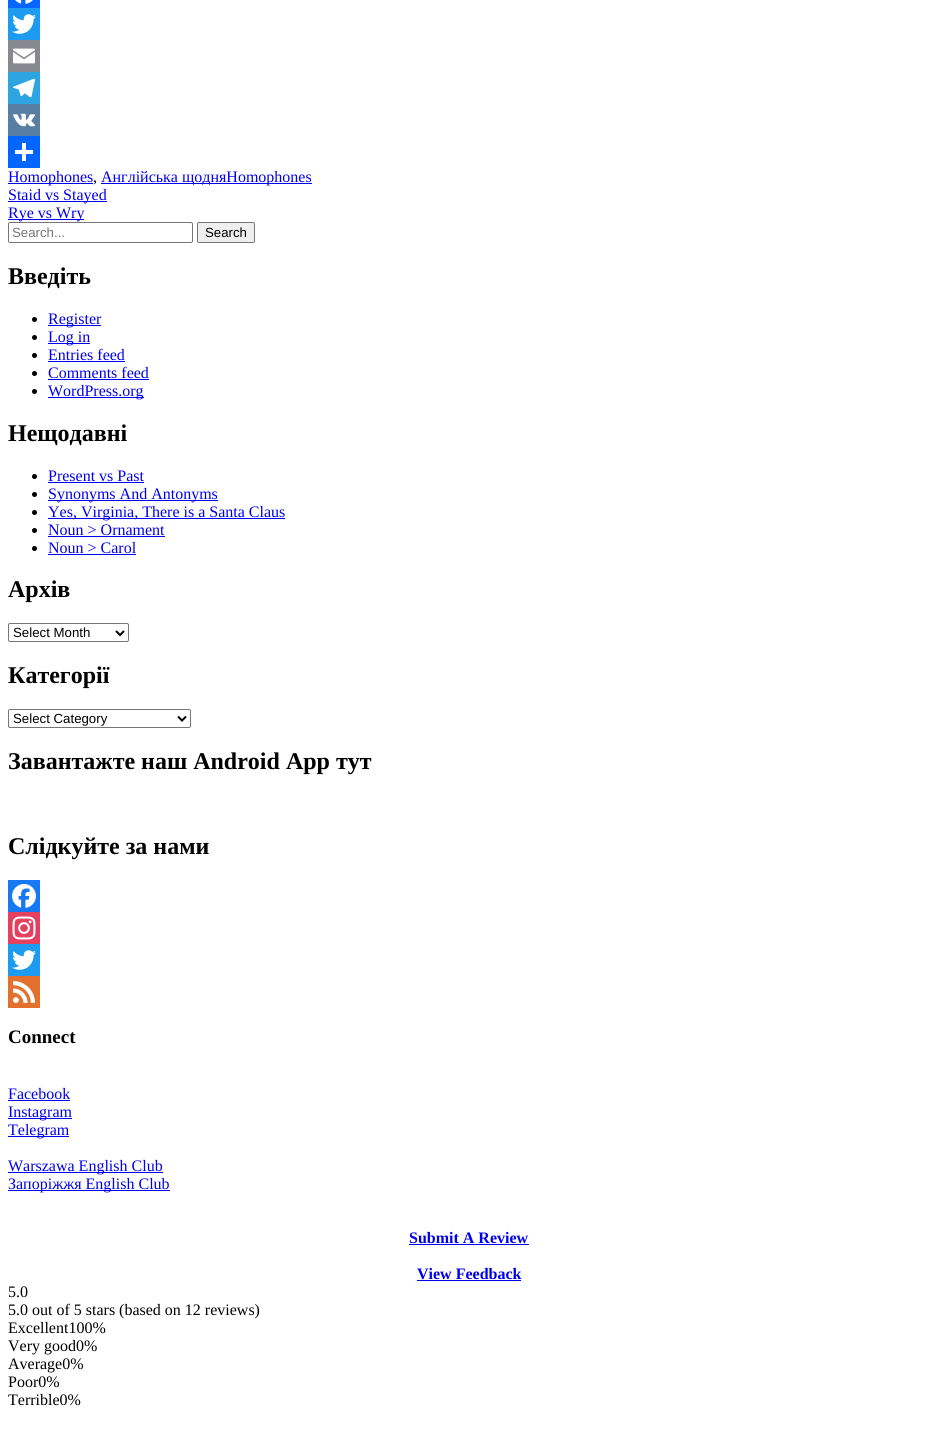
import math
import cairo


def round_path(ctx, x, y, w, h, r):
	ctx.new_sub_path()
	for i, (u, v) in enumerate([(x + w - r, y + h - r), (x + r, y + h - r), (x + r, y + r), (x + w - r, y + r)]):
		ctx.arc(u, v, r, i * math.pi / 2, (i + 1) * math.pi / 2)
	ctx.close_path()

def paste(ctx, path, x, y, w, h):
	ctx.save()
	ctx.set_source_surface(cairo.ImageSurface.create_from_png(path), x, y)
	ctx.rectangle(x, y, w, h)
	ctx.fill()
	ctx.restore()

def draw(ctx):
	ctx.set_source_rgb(1, 1, 1)
	ctx.paint()
	ctx.set_source_rgb(0.031, 0.4, 1)
	ctx.rectangle(8, 0, 32, 8)
	ctx.fill()
	paste(ctx, 'media/1.png', 15, 0, 18, 4)
	ctx.set_source_rgb(0.114, 0.608, 0.941)
	ctx.rectangle(8, 8, 32, 32)
	ctx.fill()
	paste(ctx, 'media/2.png', 12, 14, 24, 20)
	ctx.set_source_rgb(0.533, 0.537, 0.565)
	ctx.rectangle(8, 40, 32, 32)
	ctx.fill()
	paste(ctx, 'media/3.png', 13, 48, 22, 16)
	ctx.set_source_rgb(0.173, 0.647, 0.878)
	ctx.rectangle(8, 72, 32, 32)
	ctx.fill()
	paste(ctx, 'media/4.png', 13, 78, 22, 20)
	ctx.set_source_rgb(0.345, 0.494, 0.639)
	ctx.rectangle(8, 104, 32, 32)
	ctx.fill()
	paste(ctx, 'media/5.png', 13, 113, 22, 14)
	ctx.set_source_rgb(0.004, 0.4, 1)
	ctx.rectangle(8, 136, 32, 32)
	ctx.fill()
	ctx.set_source_rgb(1, 1, 1)
	ctx.rectangle(22, 143, 4, 18)
	ctx.rectangle(15, 150, 18, 4)
	ctx.fill()
	ctx.set_source_rgb(0, 0, 0.933)
	ctx.rectangle(8, 183, 85, 1)
	ctx.fill()
	ctx.select_font_face('Liberation Serif')
	ctx.set_font_size(16)
	ctx.move_to(8, 182)
	ctx.show_text('Homophones')
	ctx.set_source_rgb(0, 0, 0)
	ctx.move_to(93, 182)
	ctx.show_text(',')
	ctx.set_source_rgb(0, 0, 0.933)
	ctx.rectangle(101, 183, 211, 1)
	ctx.fill()
	ctx.move_to(101, 182)
	ctx.show_text('Англійська щодняHomophones')
	ctx.rectangle(8, 201, 99, 1)
	ctx.fill()
	ctx.move_to(8, 200)
	ctx.show_text('Staid vs Stayed')
	ctx.rectangle(8, 219, 76, 1)
	ctx.fill()
	ctx.move_to(8, 218)
	ctx.show_text('Rye vs Wry')
	round_path(ctx, 8.5, 222.5, 184, 20, 1.5)
	ctx.set_source_rgb(0.463, 0.463, 0.463)
	ctx.set_line_width(1)
	ctx.stroke()
	ctx.select_font_face('Liberation Sans')
	ctx.set_font_size(13.25)
	ctx.set_source_rgb(0.459, 0.459, 0.459)
	ctx.move_to(12, 237)
	ctx.show_text('Search...')
	ctx.set_source_rgb(0.937, 0.937, 0.937)
	round_path(ctx, 197.5, 222.5, 57, 20, 1.5)
	ctx.fill_preserve()
	ctx.set_source_rgb(0.463, 0.463, 0.463)
	ctx.stroke()
	ctx.set_source_rgb(0, 0, 0)
	ctx.move_to(205, 237)
	ctx.show_text('Search')
	ctx.select_font_face('Liberation Serif', cairo.FONT_SLANT_NORMAL, cairo.FONT_WEIGHT_BOLD)
	ctx.set_font_size(24)
	ctx.move_to(8, 284)
	ctx.show_text('Введіть')
	ctx.new_path()
	ctx.arc(34.5, 319.5, 2.5, 0, 2 * math.pi)
	ctx.fill()
	ctx.set_source_rgb(0, 0, 0.933)
	ctx.rectangle(48, 325, 53, 1)
	ctx.fill()
	ctx.select_font_face('Liberation Serif')
	ctx.set_font_size(16)
	ctx.move_to(48, 324)
	ctx.show_text('Register')
	ctx.set_source_rgb(0, 0, 0)
	ctx.new_path()
	ctx.arc(34.5, 337.5, 2.5, 0, 2 * math.pi)
	ctx.fill()
	ctx.set_source_rgb(0, 0, 0.933)
	ctx.rectangle(48, 343, 42, 1)
	ctx.fill()
	ctx.move_to(48, 342)
	ctx.show_text('Log in')
	ctx.set_source_rgb(0, 0, 0)
	ctx.new_path()
	ctx.arc(34.5, 355.5, 2.5, 0, 2 * math.pi)
	ctx.fill()
	ctx.set_source_rgb(0, 0, 0.933)
	ctx.move_to(48, 360)
	ctx.show_text('Entries feed')
	ctx.rectangle(48, 361, 77, 1)
	ctx.fill()
	ctx.set_source_rgb(0, 0, 0)
	ctx.arc(34.5, 373.5, 2.5, 0, 2 * math.pi)
	ctx.fill()
	ctx.set_source_rgb(0, 0, 0.933)
	ctx.move_to(48, 378)
	ctx.show_text('Comments feed')
	ctx.rectangle(48, 379, 101, 1)
	ctx.fill()
	ctx.set_source_rgb(0, 0, 0)
	ctx.arc(34.5, 391.5, 2.5, 0, 2 * math.pi)
	ctx.fill()
	ctx.set_source_rgb(0, 0, 0.933)
	ctx.rectangle(48, 397, 96, 1)
	ctx.fill()
	ctx.move_to(48, 396)
	ctx.show_text('WordPress.org')
	ctx.select_font_face('Liberation Serif', cairo.FONT_SLANT_NORMAL, cairo.FONT_WEIGHT_BOLD)
	ctx.set_font_size(24)
	ctx.set_source_rgb(0, 0, 0)
	ctx.move_to(8, 441)
	ctx.show_text('Нещодавні')
	ctx.new_path()
	ctx.arc(34.5, 476.5, 2.5, 0, 2 * math.pi)
	ctx.fill()
	ctx.select_font_face('Liberation Serif')
	ctx.set_font_size(16)
	ctx.set_source_rgb(0, 0, 0.933)
	ctx.move_to(48, 481)
	ctx.show_text('Present vs Past')
	ctx.rectangle(48, 482, 96, 1)
	ctx.fill()
	ctx.set_source_rgb(0, 0, 0)
	ctx.arc(34.5, 494.5, 2.5, 0, 2 * math.pi)
	ctx.fill()
	ctx.set_source_rgb(0, 0, 0.933)
	ctx.rectangle(48, 500, 170, 1)
	ctx.fill()
	ctx.move_to(48, 499)
	ctx.show_text('Synonyms And Antonyms')
	ctx.set_source_rgb(0, 0, 0)
	ctx.new_path()
	ctx.arc(34.5, 512.5, 2.5, 0, 2 * math.pi)
	ctx.fill()
	ctx.set_source_rgb(0, 0, 0.933)
	ctx.rectangle(48, 518, 237, 1)
	ctx.fill()
	ctx.move_to(48, 517)
	ctx.show_text('Yes, Virginia, There is a Santa Claus')
	ctx.set_source_rgb(0, 0, 0)
	ctx.new_path()
	ctx.arc(34.5, 530.5, 2.5, 0, 2 * math.pi)
	ctx.fill()
	ctx.set_source_rgb(0, 0, 0.933)
	ctx.move_to(48, 535)
	ctx.show_text('Noun > Ornament')
	ctx.rectangle(48, 536, 117, 1)
	ctx.fill()
	ctx.set_source_rgb(0, 0, 0)
	ctx.arc(34.5, 548.5, 2.5, 0, 2 * math.pi)
	ctx.fill()
	ctx.set_source_rgb(0, 0, 0.933)
	ctx.move_to(48, 553)
	ctx.show_text('Noun > Carol')
	ctx.rectangle(48, 554, 88, 1)
	ctx.fill()
	ctx.select_font_face('Liberation Serif', cairo.FONT_SLANT_NORMAL, cairo.FONT_WEIGHT_BOLD)
	ctx.set_font_size(24)
	ctx.set_source_rgb(0, 0, 0)
	ctx.move_to(8, 597)
	ctx.show_text('Архів')
	round_path(ctx, 8.5, 623.5, 120, 18, 1.5)
	ctx.set_source_rgb(0.463, 0.463, 0.463)
	ctx.stroke()
	ctx.new_path()
	ctx.move_to(116, 631)
	ctx.line_to(120, 635)
	ctx.line_to(124, 631)
	ctx.set_source_rgb(0, 0, 0)
	ctx.set_line_width(2)
	ctx.stroke()
	ctx.select_font_face('Liberation Sans')
	ctx.set_font_size(13.25)
	ctx.move_to(13, 637)
	ctx.show_text('Select Month')
	ctx.select_font_face('Liberation Serif', cairo.FONT_SLANT_NORMAL, cairo.FONT_WEIGHT_BOLD)
	ctx.set_font_size(24)
	ctx.move_to(8, 683)
	ctx.show_text('Категорії')
	round_path(ctx, 8.5, 709.5, 182, 18, 1.5)
	ctx.set_source_rgb(0.463, 0.463, 0.463)
	ctx.set_line_width(1)
	ctx.stroke()
	ctx.new_path()
	ctx.move_to(178, 716.5)
	ctx.line_to(182, 720.5)
	ctx.line_to(186, 716.5)
	ctx.set_source_rgb(0, 0, 0)
	ctx.set_line_width(2)
	ctx.stroke()
	ctx.select_font_face('Liberation Sans')
	ctx.set_font_size(13.25)
	ctx.move_to(13, 723)
	ctx.show_text('Select Category')
	ctx.select_font_face('Liberation Serif', cairo.FONT_SLANT_NORMAL, cairo.FONT_WEIGHT_BOLD)
	ctx.set_font_size(24)
	ctx.move_to(8, 769)
	ctx.show_text('Завантажте наш Android App тут')
	ctx.move_to(8, 854)
	ctx.show_text('Слідкуйте за нами')
	ctx.set_source_rgb(0.094, 0.467, 0.949)
	ctx.rectangle(8, 880, 32, 32)
	ctx.fill()
	paste(ctx, 'media/6.png', 12, 884, 24, 24)
	ctx.set_source_rgb(0.894, 0.251, 0.373)
	ctx.rectangle(8, 912, 32, 32)
	ctx.fill()
	paste(ctx, 'media/7.png', 12, 916, 24, 24)
	ctx.set_source_rgb(0.114, 0.608, 0.941)
	ctx.rectangle(8, 944, 32, 32)
	ctx.fill()
	paste(ctx, 'media/2.png', 12, 950, 24, 20)
	ctx.set_source_rgb(0.89, 0.439, 0.176)
	ctx.rectangle(8, 976, 32, 32)
	ctx.fill()
	paste(ctx, 'media/8.png', 13, 981, 22, 22)
	ctx.set_font_size(19)
	ctx.set_source_rgb(0, 0, 0)
	ctx.move_to(8, 1043)
	ctx.show_text('Connect')
	ctx.select_font_face('Liberation Serif')
	ctx.set_font_size(16)
	ctx.set_source_rgb(0, 0, 0.933)
	ctx.move_to(8, 1099)
	ctx.show_text('Facebook')
	ctx.rectangle(8, 1100, 62, 1)
	ctx.fill()
	ctx.rectangle(8, 1118, 64, 1)
	ctx.fill()
	ctx.move_to(8, 1117)
	ctx.show_text('Instagram')
	ctx.rectangle(8, 1136, 61, 1)
	ctx.fill()
	ctx.move_to(8, 1135)
	ctx.show_text('Telegram')
	ctx.rectangle(8, 1172, 155, 1)
	ctx.fill()
	ctx.move_to(8, 1171)
	ctx.show_text('Warszawa English Club')
	ctx.rectangle(8, 1190, 162, 1)
	ctx.fill()
	ctx.move_to(8, 1189)
	ctx.show_text('Запоріжжя English Club')
	ctx.select_font_face('Liberation Serif', cairo.FONT_SLANT_NORMAL, cairo.FONT_WEIGHT_BOLD)
	ctx.move_to(409, 1243)
	ctx.show_text('Submit A Review')
	ctx.rectangle(409, 1244, 120, 1)
	ctx.fill()
	ctx.move_to(417, 1279)
	ctx.show_text('View Feedback')
	ctx.rectangle(417, 1280, 104, 1)
	ctx.fill()
	ctx.select_font_face('Liberation Serif')
	ctx.set_source_rgb(0, 0, 0)
	for x, y, s in [
		(8, 1297, '5.0'),
		(8, 1315, '5.0 out of 5 stars (based on 12 reviews)'),
		(8, 1333, 'Excellent100%'),
		(8, 1351, 'Very good0%'),
		(8, 1369, 'Average0%'),
		(8, 1387, 'Poor0%'),
		(8, 1405, 'Terrible0%'),
	]:
		ctx.move_to(x, y)
		ctx.show_text(s)


surface = cairo.ImageSurface(cairo.FORMAT_RGB24, 938, 1430)
ctx = cairo.Context(surface)
options = cairo.FontOptions()
options.set_hint_metrics(cairo.HINT_METRICS_OFF)
options.set_hint_style(cairo.HINT_STYLE_NONE)
ctx.set_font_options(options)
ctx.set_miter_limit(4)
draw(ctx)
surface.write_to_png('image.png')
